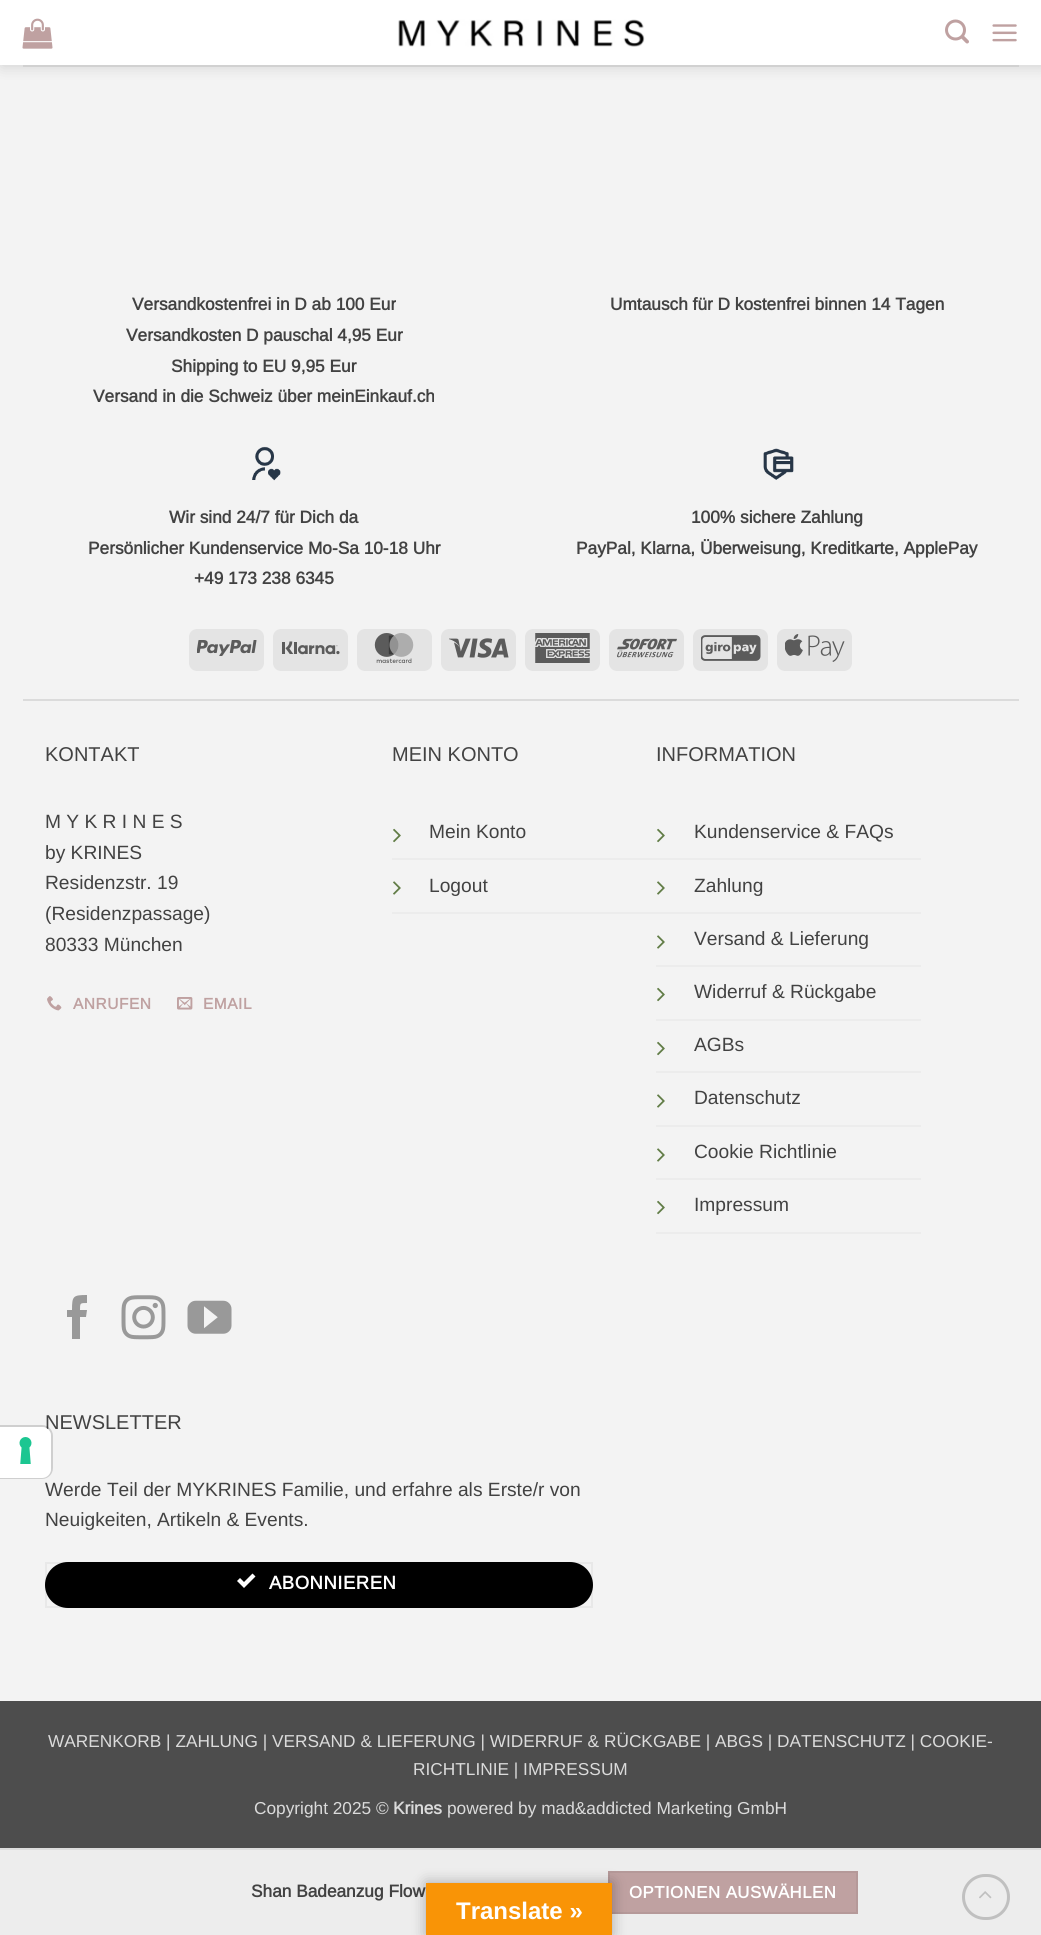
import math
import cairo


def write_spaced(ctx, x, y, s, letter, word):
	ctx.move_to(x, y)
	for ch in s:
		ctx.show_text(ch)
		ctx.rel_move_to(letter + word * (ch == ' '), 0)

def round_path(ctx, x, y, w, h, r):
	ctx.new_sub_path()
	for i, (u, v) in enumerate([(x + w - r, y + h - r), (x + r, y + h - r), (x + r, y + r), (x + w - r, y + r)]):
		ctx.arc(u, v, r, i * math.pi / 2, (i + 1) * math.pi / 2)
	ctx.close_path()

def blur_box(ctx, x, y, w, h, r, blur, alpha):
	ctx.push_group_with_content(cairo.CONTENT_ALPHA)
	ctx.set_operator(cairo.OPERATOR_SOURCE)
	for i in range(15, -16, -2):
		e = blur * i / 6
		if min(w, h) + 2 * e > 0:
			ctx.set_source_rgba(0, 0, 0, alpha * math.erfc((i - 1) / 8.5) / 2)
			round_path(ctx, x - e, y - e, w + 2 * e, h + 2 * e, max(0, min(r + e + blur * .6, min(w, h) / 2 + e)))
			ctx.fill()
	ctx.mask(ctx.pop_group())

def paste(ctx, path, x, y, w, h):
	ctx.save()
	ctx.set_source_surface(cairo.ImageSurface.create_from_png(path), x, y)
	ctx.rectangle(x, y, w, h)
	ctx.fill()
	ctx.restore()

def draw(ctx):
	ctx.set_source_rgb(0.302, 0.302, 0.302)
	ctx.paint()
	ctx.set_source_rgb(0.953, 0.953, 0.953)
	ctx.rectangle(0, 65, 1041, 1636)
	ctx.fill()
	ctx.select_font_face('Arimo')
	ctx.set_font_size(20)
	ctx.set_source_rgb(0.259, 0.259, 0.259)
	ctx.move_to(45, 1429)
	ctx.show_text('NEWSLETTER')
	ctx.new_path()
	ctx.move_to(0, 1426)
	ctx.line_to(42, 1426)
	ctx.curve_to(47.5, 1426, 52, 1430.5, 52, 1436)
	ctx.line_to(52, 1468)
	ctx.curve_to(52, 1473.5, 47.5, 1478, 42, 1478)
	ctx.line_to(0, 1478)
	ctx.close_path()
	ctx.set_source_rgba(0, 0, 0, 0.15)
	ctx.stroke()
	ctx.set_source_rgb(1, 1, 1)
	ctx.new_path()
	ctx.move_to(0, 1427)
	ctx.line_to(42, 1427)
	ctx.curve_to(47, 1427, 51, 1431, 51, 1436)
	ctx.line_to(51, 1469)
	ctx.curve_to(51, 1474, 47, 1478, 42, 1478)
	ctx.line_to(0, 1478)
	ctx.close_path()
	ctx.fill()
	paste(ctx, 'media/1.png', 19, 1437, 13, 27)
	ctx.set_source_rgb(0, 0, 0)
	blur_box(ctx, 2, 2, 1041, 64, 0, 7.5, 0.15)
	ctx.set_source_rgb(1, 1, 1)
	ctx.rectangle(0, 0, 1041, 65)
	ctx.fill()
	paste(ctx, 'media/2.png', 22, 18, 31, 31)
	paste(ctx, 'media/3.png', 398, 19, 247, 28)
	paste(ctx, 'media/4.png', 945, 19, 24, 25)
	paste(ctx, 'media/5.png', 992, 24, 25, 18)
	ctx.set_source_rgb(0.82, 0.82, 0.82)
	ctx.rectangle(23, 65, 996, 2)
	ctx.fill()
	ctx.select_font_face('Arimo', cairo.FONT_SLANT_NORMAL, cairo.FONT_WEIGHT_BOLD)
	ctx.set_font_size(17.28)
	ctx.set_source_rgb(0.259, 0.259, 0.259)
	for x, y, s in [
		(132, 310, 'Versandkostenfrei in D ab 100 Eur'),
		(126, 341, 'Versandkosten D pauschal 4,95 Eur'),
		(171, 372, 'Shipping to EU 9,95 Eur'),
		(93, 402, 'Versand in die Schweiz über meinEinkauf.ch'),
		(610, 310, 'Umtausch für D kostenfrei binnen 14 Tagen'),
	]:
		ctx.move_to(x, y)
		ctx.show_text(s)
	paste(ctx, 'media/6.png', 252, 446, 29, 35)
	for x, y, s in [
		(169, 523, 'Wir sind 24/7 für Dich da'),
		(88, 554, 'Persönlicher Kundenservice Mo-Sa 10-18 Uhr'),
		(194, 584, '+49 173 238 6345'),
	]:
		ctx.move_to(x, y)
		ctx.show_text(s)
	paste(ctx, 'media/7.png', 763, 448, 31, 32)
	ctx.move_to(691, 523)
	ctx.show_text('100% sichere Zahlung')
	ctx.move_to(576, 554)
	ctx.show_text('PayPal, Klarna, Überweisung, Kreditkarte, ApplePay')
	ctx.set_source_rgb(0.894, 0.894, 0.894)
	round_path(ctx, 189, 629, 75, 42, 8)
	ctx.fill()
	paste(ctx, 'media/8.png', 197, 640, 60, 16)
	round_path(ctx, 273, 629, 75, 42, 8)
	ctx.fill()
	paste(ctx, 'media/9.png', 282, 641, 58, 14)
	round_path(ctx, 357, 629, 75, 42, 8)
	ctx.fill()
	paste(ctx, 'media/10.png', 374, 633, 40, 30)
	round_path(ctx, 441, 629, 75, 42, 8)
	ctx.fill()
	paste(ctx, 'media/11.png', 449, 638, 60, 20)
	round_path(ctx, 525, 629, 75, 42, 8)
	ctx.fill()
	paste(ctx, 'media/12.png', 535, 633, 55, 30)
	round_path(ctx, 609, 629, 75, 42, 8)
	ctx.fill()
	paste(ctx, 'media/13.png', 617, 638, 60, 20)
	round_path(ctx, 693, 629, 75, 42, 8)
	ctx.fill()
	paste(ctx, 'media/14.png', 701, 635, 60, 26)
	round_path(ctx, 777, 629, 75, 42, 8)
	ctx.fill()
	paste(ctx, 'media/15.png', 785, 634, 60, 28)
	ctx.set_source_rgb(0.859, 0.859, 0.859)
	ctx.rectangle(23, 699, 996, 2)
	ctx.fill()
	ctx.select_font_face('Arimo')
	ctx.set_font_size(20)
	ctx.set_source_rgb(0.259, 0.259, 0.259)
	ctx.move_to(45, 761)
	ctx.show_text('KONTAKT')
	ctx.set_font_size(19.2)
	for x, y, s in [
		(45, 828, 'M Y K R I N E S'),
		(45, 859, 'by KRINES'),
		(45, 889, 'Residenzstr. 19'),
		(45, 920, '(Residenzpassage)'),
		(45, 951, '80333 München'),
	]:
		ctx.move_to(x, y)
		ctx.show_text(s)
	paste(ctx, 'media/16.png', 47, 996, 15, 15)
	ctx.select_font_face('Arimo', cairo.FONT_SLANT_NORMAL, cairo.FONT_WEIGHT_BOLD)
	ctx.set_font_size(15.5)
	ctx.set_source_rgb(0.749, 0.631, 0.631)
	write_spaced(ctx, 73, 1009, 'ANRUFEN', 0.5, 0)
	paste(ctx, 'media/17.png', 177, 997, 16, 13)
	write_spaced(ctx, 203, 1009, 'EMAIL', 0.5, 0)
	ctx.select_font_face('Arimo')
	ctx.set_font_size(20)
	ctx.set_source_rgb(0.259, 0.259, 0.259)
	ctx.move_to(392, 761)
	ctx.show_text('MEIN KONTO')
	ctx.set_source_rgb(0.925, 0.925, 0.925)
	ctx.rectangle(392, 858, 529, 2)
	ctx.fill()
	paste(ctx, 'media/18.png', 393, 828, 8, 15)
	ctx.set_font_size(19.2)
	ctx.set_source_rgb(0.259, 0.259, 0.259)
	ctx.move_to(429, 838)
	ctx.show_text('Mein Konto')
	ctx.set_source_rgb(0.925, 0.925, 0.925)
	ctx.rectangle(392, 912, 529, 2)
	ctx.fill()
	paste(ctx, 'media/19.png', 393, 881, 8, 14)
	ctx.set_source_rgb(0.259, 0.259, 0.259)
	ctx.move_to(429, 892)
	ctx.show_text('Logout')
	ctx.set_font_size(20)
	ctx.move_to(656, 761)
	ctx.show_text('INFORMATION')
	paste(ctx, 'media/18.png', 657, 828, 8, 15)
	ctx.set_font_size(19.2)
	ctx.move_to(694, 838)
	ctx.show_text('Kundenservice & FAQs')
	paste(ctx, 'media/19.png', 657, 881, 8, 14)
	ctx.move_to(694, 892)
	ctx.show_text('Zahlung')
	ctx.set_source_rgb(0.925, 0.925, 0.925)
	ctx.rectangle(656, 965, 265, 2)
	ctx.fill()
	paste(ctx, 'media/19.png', 657, 935, 8, 14)
	ctx.set_source_rgb(0.259, 0.259, 0.259)
	ctx.move_to(694, 945)
	ctx.show_text('Versand & Lieferung')
	ctx.set_source_rgb(0.925, 0.925, 0.925)
	ctx.rectangle(656, 1019, 265, 2)
	ctx.fill()
	paste(ctx, 'media/18.png', 657, 987, 8, 15)
	ctx.set_source_rgb(0.259, 0.259, 0.259)
	ctx.move_to(694, 998)
	ctx.show_text('Widerruf & Rückgabe')
	ctx.set_source_rgb(0.925, 0.925, 0.925)
	ctx.rectangle(656, 1071, 265, 2)
	ctx.fill()
	paste(ctx, 'media/18.png', 657, 1041, 8, 15)
	ctx.set_source_rgb(0.259, 0.259, 0.259)
	ctx.move_to(694, 1051)
	ctx.show_text('AGBs')
	ctx.set_source_rgb(0.925, 0.925, 0.925)
	ctx.rectangle(656, 1125, 265, 2)
	ctx.fill()
	paste(ctx, 'media/19.png', 657, 1094, 8, 14)
	ctx.set_source_rgb(0.259, 0.259, 0.259)
	ctx.move_to(694, 1104)
	ctx.show_text('Datenschutz')
	ctx.set_source_rgb(0.925, 0.925, 0.925)
	ctx.rectangle(656, 1178, 265, 2)
	ctx.fill()
	paste(ctx, 'media/19.png', 657, 1148, 8, 14)
	ctx.set_source_rgb(0.259, 0.259, 0.259)
	ctx.move_to(694, 1158)
	ctx.show_text('Cookie Richtlinie')
	ctx.set_source_rgb(0.925, 0.925, 0.925)
	ctx.rectangle(656, 1232, 265, 2)
	ctx.fill()
	paste(ctx, 'media/18.png', 657, 1200, 8, 15)
	ctx.set_source_rgb(0.259, 0.259, 0.259)
	ctx.move_to(694, 1211)
	ctx.show_text('Impressum')
	ctx.set_source_rgb(0.6, 0.6, 0.6)
	ctx.new_path()
	ctx.move_to(80, 1339)
	ctx.line_to(72, 1339)
	ctx.line_to(72, 1317)
	ctx.line_to(67, 1317)
	ctx.line_to(67, 1310)
	ctx.line_to(72, 1310)
	ctx.curve_to(72, 1296, 73, 1295, 87, 1295)
	ctx.line_to(87, 1303)
	ctx.curve_to(80, 1303, 80, 1303, 80, 1310)
	ctx.line_to(87, 1310)
	ctx.line_to(86, 1317)
	ctx.line_to(80, 1317)
	ctx.close_path()
	ctx.fill()
	paste(ctx, 'media/20.png', 121, 1295, 45, 45)
	paste(ctx, 'media/21.png', 187, 1300, 45, 34)
	ctx.set_source_rgb(0.259, 0.259, 0.259)
	ctx.move_to(45, 1496)
	ctx.show_text('Werde Teil der MYKRINES Familie, und erfahre als Erste/r von')
	ctx.move_to(45, 1526)
	ctx.show_text('Neuigkeiten, Artikeln & Events.')
	ctx.set_source_rgb(0, 0, 0)
	round_path(ctx, 45, 1562, 548, 46, 23)
	ctx.fill()
	ctx.rectangle(46, 1563, 546, 44)
	ctx.set_source_rgba(0, 0, 0, 0.05)
	ctx.stroke()
	ctx.set_source_rgb(1, 1, 1)
	ctx.new_path()
	ctx.move_to(252.5, 1573.5)
	ctx.line_to(244, 1582)
	ctx.line_to(240, 1578)
	ctx.line_to(237, 1581)
	ctx.line_to(244, 1588)
	ctx.line_to(255.5, 1576.5)
	ctx.close_path()
	ctx.fill()
	ctx.select_font_face('Arimo', cairo.FONT_SLANT_NORMAL, cairo.FONT_WEIGHT_BOLD)
	ctx.set_font_size(18.5)
	write_spaced(ctx, 269, 1589, 'ABONNIEREN', 0.5, 0)
	ctx.select_font_face('Arimo')
	ctx.set_font_size(17.28)
	ctx.set_source_rgb(0.859, 0.859, 0.859)
	for x, y, s in [
		(48, 1747, 'WARENKORB | ZAHLUNG | VERSAND & LIEFERUNG | WIDERRUF & RÜCKGABE | ABGS | DATENSCHUTZ | COOKIE-'),
		(413, 1775, 'RICHTLINIE | IMPRESSUM'),
		(254, 1814, 'Copyright 2025 ©'),
	]:
		ctx.move_to(x, y)
		ctx.show_text(s)
	ctx.select_font_face('Arimo', cairo.FONT_SLANT_NORMAL, cairo.FONT_WEIGHT_BOLD)
	ctx.move_to(393, 1814)
	ctx.show_text('Krines')
	ctx.select_font_face('Arimo')
	ctx.move_to(447, 1814)
	ctx.show_text('powered by mad&addicted Marketing GmbH')
	ctx.set_source_rgb(0.929, 0.929, 0.929)
	ctx.rectangle(0, 1850, 1041, 85)
	ctx.fill()
	round_path(ctx, 963.5, 1875.5, 45, 43, 21.5)
	ctx.set_source_rgb(0.753, 0.753, 0.753)
	ctx.set_line_width(3)
	ctx.stroke()
	paste(ctx, 'media/22.png', 979, 1891, 13, 8)
	ctx.set_source_rgb(0.867, 0.867, 0.867)
	ctx.rectangle(0, 1848, 1041, 2)
	ctx.fill()
	ctx.select_font_face('Arimo', cairo.FONT_SLANT_NORMAL, cairo.FONT_WEIGHT_BOLD)
	ctx.set_source_rgb(0.259, 0.259, 0.259)
	ctx.move_to(251, 1897)
	ctx.show_text('Shan Badeanzug Flow')
	ctx.set_source_rgb(0.749, 0.631, 0.631)
	ctx.rectangle(609, 1872, 248, 41)
	ctx.fill_preserve()
	ctx.set_source_rgb(0.71, 0.6, 0.6)
	ctx.set_line_width(2)
	ctx.stroke()
	ctx.set_font_size(16.75)
	ctx.set_source_rgb(1, 1, 1)
	write_spaced(ctx, 629, 1898, 'OPTIONEN AUSWÄHLEN', 0.5, 0)
	ctx.set_source_rgb(0, 0, 0)
	blur_box(ctx, 426, 1883, 186, 52, 0, 7, 0.3)
	ctx.set_source_rgb(0.973, 0.58, 0.024)
	ctx.rectangle(426, 1883, 186, 52)
	ctx.fill()
	ctx.select_font_face('Liberation Sans', cairo.FONT_SLANT_NORMAL, cairo.FONT_WEIGHT_BOLD)
	ctx.set_font_size(24)
	ctx.set_source_rgb(1, 1, 1)
	ctx.move_to(456, 1919)
	ctx.show_text('Translate »')


surface = cairo.ImageSurface(cairo.FORMAT_RGB24, 1041, 1935)
ctx = cairo.Context(surface)
options = cairo.FontOptions()
options.set_hint_metrics(cairo.HINT_METRICS_OFF)
options.set_hint_style(cairo.HINT_STYLE_NONE)
ctx.set_font_options(options)
ctx.set_miter_limit(4)
draw(ctx)
surface.write_to_png('image.png')
